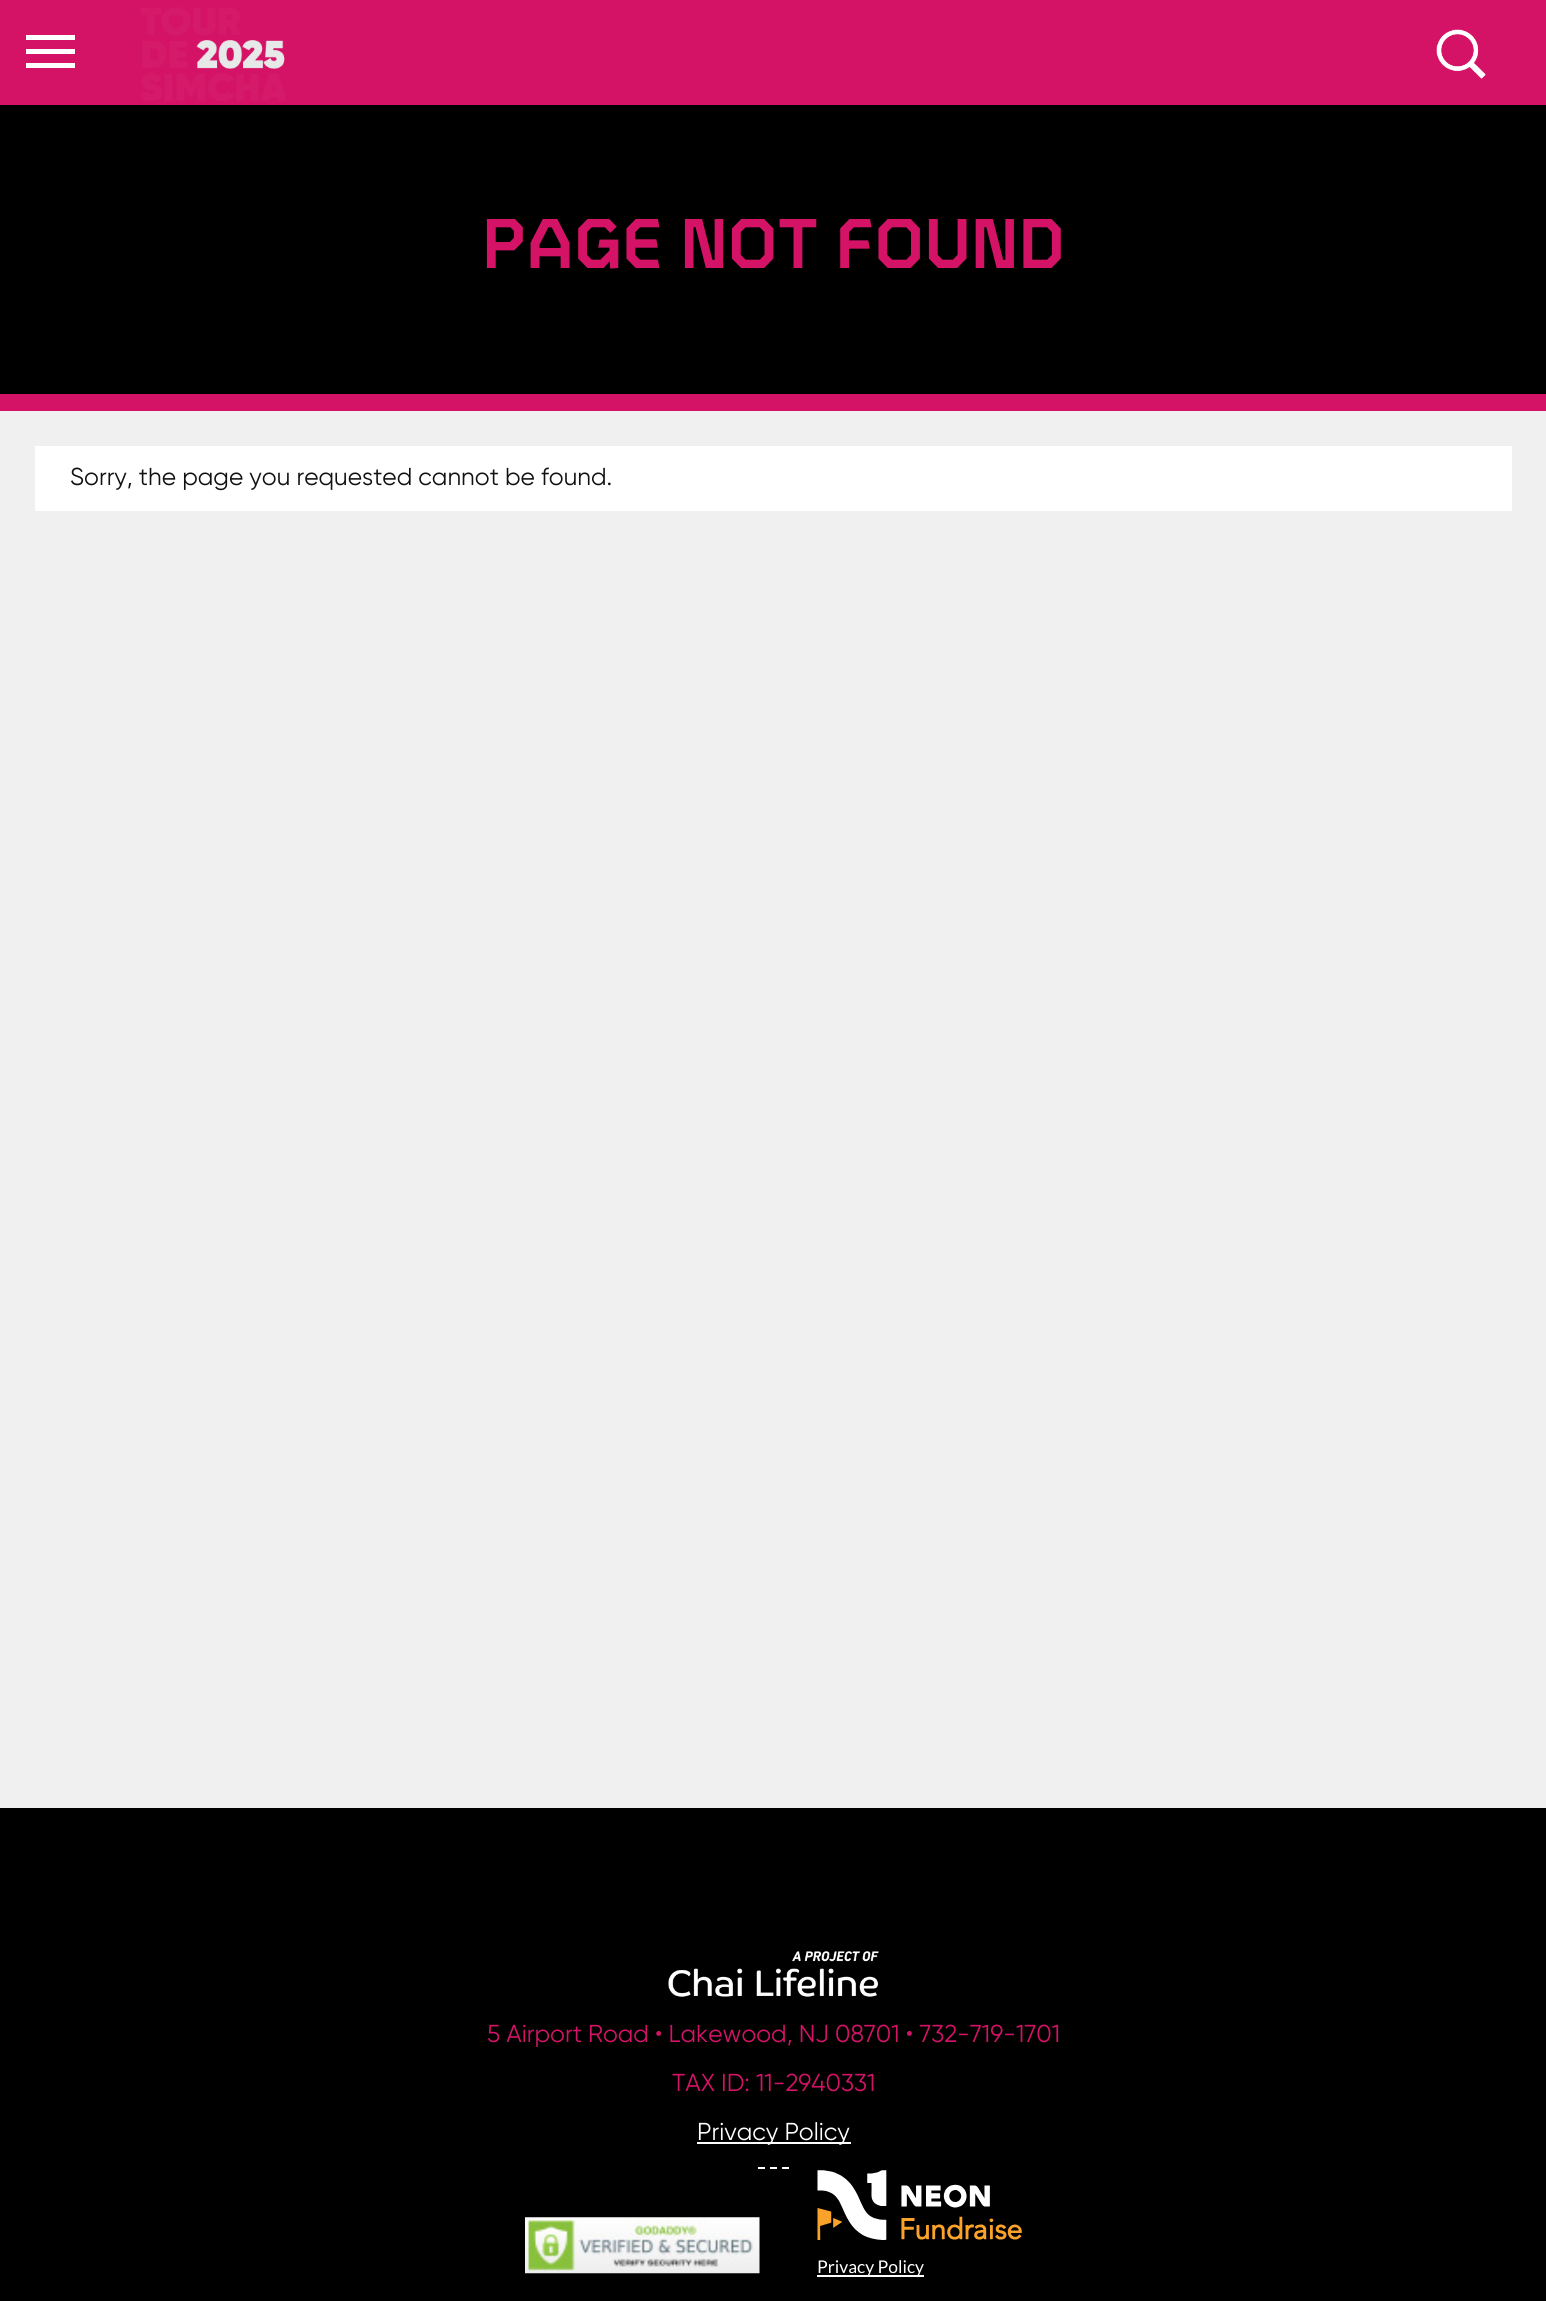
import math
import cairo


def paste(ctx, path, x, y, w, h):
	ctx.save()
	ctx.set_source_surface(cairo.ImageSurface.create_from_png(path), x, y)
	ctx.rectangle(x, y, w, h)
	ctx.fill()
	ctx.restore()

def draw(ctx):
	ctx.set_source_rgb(0, 0, 0)
	ctx.paint()
	ctx.set_source_rgb(0.831, 0.075, 0.404)
	ctx.rectangle(0, 0, 1546, 105)
	ctx.fill()
	ctx.set_source_rgb(1, 1, 1)
	ctx.rectangle(26, 35, 49, 5)
	ctx.rectangle(26, 49, 49, 5)
	ctx.rectangle(26, 63, 49, 5)
	ctx.fill()
	paste(ctx, 'media/1.png', 141, 7, 145, 94)
	paste(ctx, 'media/2.png', 1436, 29, 50, 50)
	ctx.set_source_rgb(0.831, 0.075, 0.404)
	ctx.rectangle(0, 394, 1546, 17)
	ctx.fill()
	ctx.select_font_face('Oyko', cairo.FONT_SLANT_NORMAL, cairo.FONT_WEIGHT_BOLD)
	ctx.set_font_size(70)
	ctx.move_to(482, 268)
	ctx.show_text('PAGE NOT FOUND')
	ctx.set_source_rgb(0.941, 0.941, 0.941)
	ctx.rectangle(0, 411, 1546, 1397)
	ctx.fill()
	ctx.set_source_rgb(1, 1, 1)
	ctx.rectangle(35, 446, 1477, 65)
	ctx.fill()
	ctx.select_font_face('Gilroy')
	ctx.set_font_size(24.5)
	ctx.set_source_rgb(0.067, 0.067, 0.067)
	ctx.move_to(70, 485)
	ctx.show_text('Sorry, the page you requested cannot be found.')
	paste(ctx, 'media/3.png', 668, 1951, 211, 46)
	ctx.set_source_rgb(0.831, 0.075, 0.404)
	ctx.move_to(487, 2042)
	ctx.show_text('5 Airport Road • Lakewood, NJ 08701 • 732-719-1701')
	ctx.move_to(672, 2091)
	ctx.show_text('TAX ID: 11-2940331')
	ctx.set_source_rgb(1, 1, 1)
	ctx.rectangle(697, 2142, 154, 2)
	ctx.fill()
	ctx.move_to(697, 2140)
	ctx.show_text('Privacy Policy')
	ctx.rectangle(758, 2167, 7, 2)
	ctx.rectangle(770, 2167, 7, 2)
	ctx.rectangle(782, 2167, 7, 2)
	ctx.fill()
	paste(ctx, 'media/4.png', 525, 2217, 235, 57)
	paste(ctx, 'media/5.png', 817, 2170, 205, 70)
	ctx.rectangle(817, 2275, 107, 2)
	ctx.fill()
	ctx.select_font_face('Lato')
	ctx.set_font_size(17.5)
	ctx.move_to(817, 2273)
	ctx.show_text('Privacy Policy')


surface = cairo.ImageSurface(cairo.FORMAT_RGB24, 1546, 2301)
ctx = cairo.Context(surface)
options = cairo.FontOptions()
options.set_hint_metrics(cairo.HINT_METRICS_OFF)
options.set_hint_style(cairo.HINT_STYLE_NONE)
ctx.set_font_options(options)
ctx.set_miter_limit(4)
draw(ctx)
surface.write_to_png('image.png')
